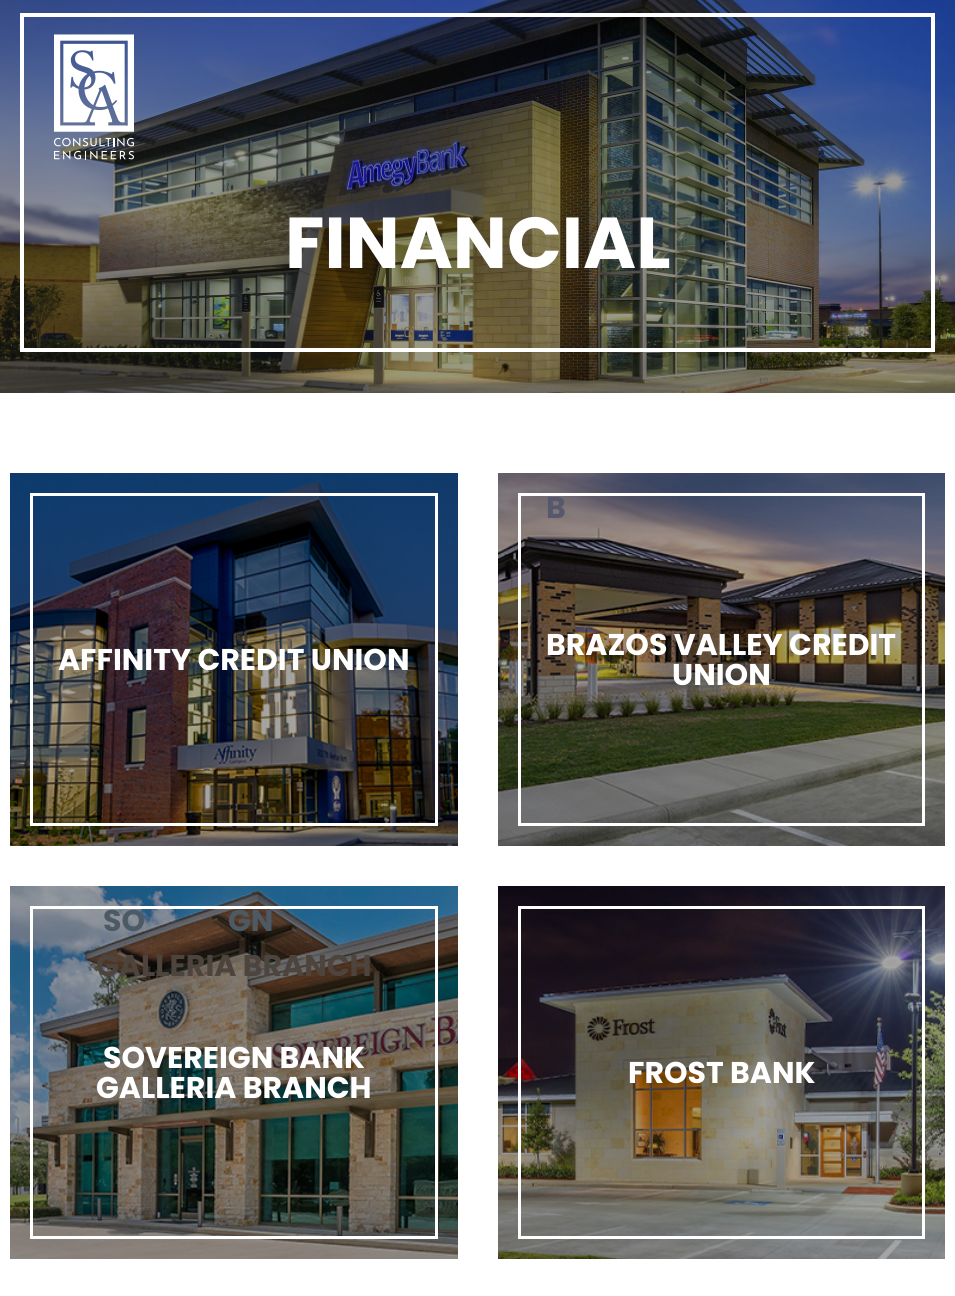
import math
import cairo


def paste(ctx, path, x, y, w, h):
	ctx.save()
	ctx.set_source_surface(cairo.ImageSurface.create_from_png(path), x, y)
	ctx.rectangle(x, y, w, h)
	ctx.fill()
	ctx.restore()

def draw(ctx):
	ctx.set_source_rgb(1, 1, 1)
	ctx.paint()
	paste(ctx, 'media/2.png', 0, 0, 955, 393)
	ctx.rectangle(22, 15, 911, 335)
	ctx.set_source_rgb(1, 1, 1)
	ctx.set_line_width(4)
	ctx.stroke()
	paste(ctx, 'media/1.png', 54, 34, 80, 126)
	ctx.select_font_face('Poppins', cairo.FONT_SLANT_NORMAL, cairo.FONT_WEIGHT_BOLD)
	ctx.set_font_size(72)
	ctx.move_to(285, 268)
	ctx.show_text('FINANCIAL')
	paste(ctx, 'media/3.png', 10, 473, 448, 373)
	ctx.rectangle(31.5, 494.5, 405, 330)
	ctx.set_line_width(3)
	ctx.stroke()
	ctx.set_font_size(30)
	ctx.move_to(58, 670)
	ctx.show_text('AFFINITY CREDIT UNION')
	paste(ctx, 'media/4.png', 498, 473, 447, 373)
	ctx.rectangle(519.5, 494.5, 404, 330)
	ctx.stroke()
	ctx.set_source_rgb(0.337, 0.349, 0.427)
	ctx.move_to(546, 518)
	ctx.show_text('B')
	ctx.set_source_rgb(1, 1, 1)
	ctx.move_to(546, 655)
	ctx.show_text('BRAZOS VALLEY CREDIT')
	ctx.move_to(672, 685)
	ctx.show_text('UNION')
	paste(ctx, 'media/5.png', 10, 886, 448, 373)
	ctx.rectangle(31.5, 907.5, 405, 330)
	ctx.stroke()
	ctx.set_source_rgb(0.298, 0.353, 0.396)
	ctx.move_to(103, 931)
	ctx.show_text('SO')
	ctx.move_to(228, 931)
	ctx.show_text('GN')
	ctx.set_source_rgb(0.302, 0.271, 0.239)
	ctx.move_to(96, 976)
	ctx.show_text('GALLERIA BRANCH')
	ctx.set_source_rgb(1, 1, 1)
	ctx.move_to(103, 1068)
	ctx.show_text('SOVEREIGN BANK')
	ctx.move_to(96, 1098)
	ctx.show_text('GALLERIA BRANCH')
	paste(ctx, 'media/6.png', 498, 886, 447, 373)
	ctx.rectangle(519.5, 907.5, 404, 330)
	ctx.stroke()
	ctx.move_to(628, 1083)
	ctx.show_text('FROST BANK')


surface = cairo.ImageSurface(cairo.FORMAT_RGB24, 955, 1296)
ctx = cairo.Context(surface)
options = cairo.FontOptions()
options.set_hint_metrics(cairo.HINT_METRICS_OFF)
options.set_hint_style(cairo.HINT_STYLE_NONE)
ctx.set_font_options(options)
ctx.set_miter_limit(4)
draw(ctx)
surface.write_to_png('image.png')
